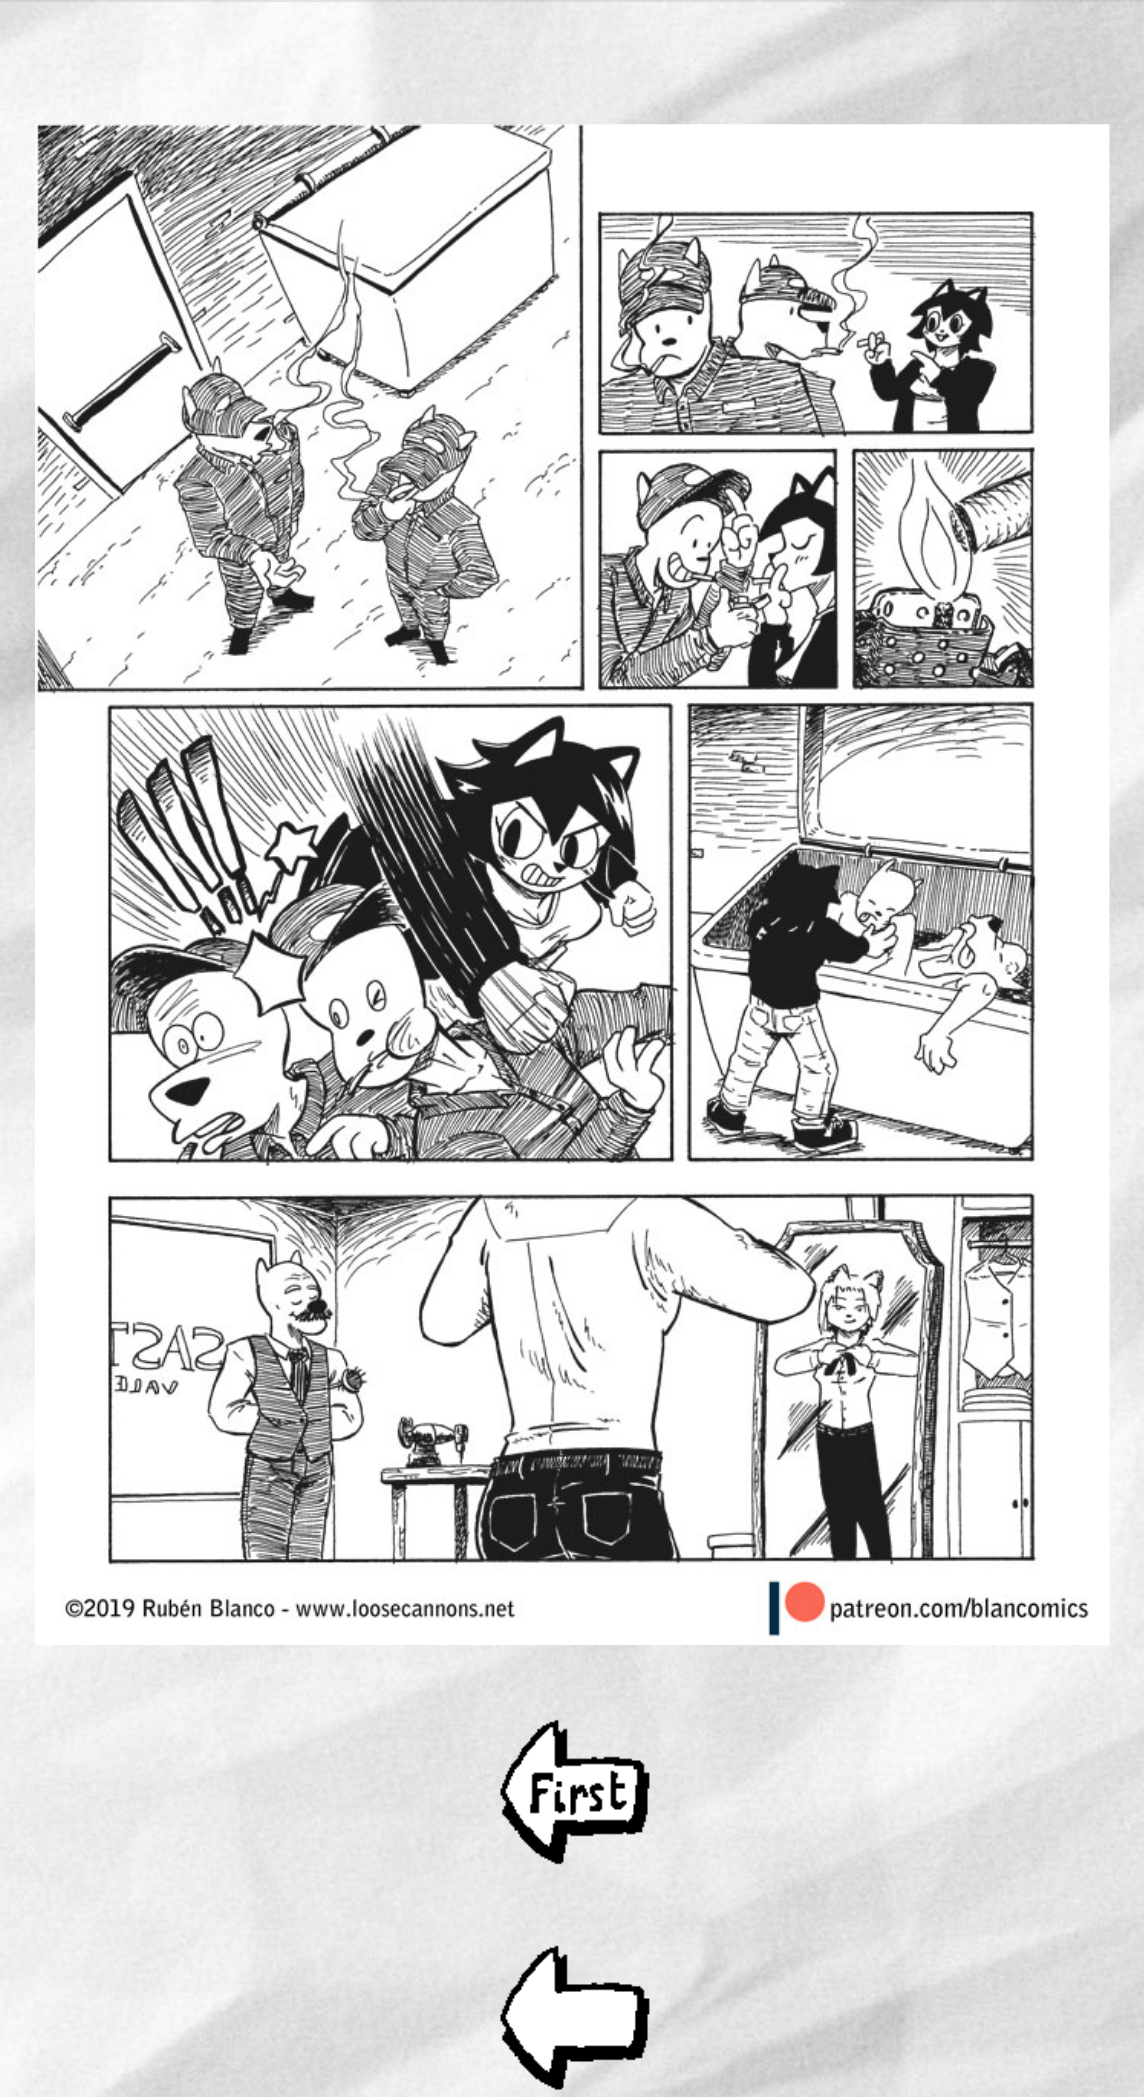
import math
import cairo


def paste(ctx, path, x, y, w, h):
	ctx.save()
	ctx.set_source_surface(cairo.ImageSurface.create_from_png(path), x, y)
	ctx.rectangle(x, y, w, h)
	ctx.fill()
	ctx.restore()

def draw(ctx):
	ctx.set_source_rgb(1, 1, 1)
	ctx.paint()
	paste(ctx, 'media/1.png', 0, 0, 1144, 2097)
	ctx.set_source_rgba(0.678, 0.69, 0.714, 0.3)
	ctx.rectangle(0, 0, 1144, 2)
	ctx.fill()
	paste(ctx, 'media/2.png', 35, 124, 1075, 1521)
	paste(ctx, 'media/3.png', 500, 1719, 150, 146)
	paste(ctx, 'media/4.png', 500, 1945, 150, 145)


surface = cairo.ImageSurface(cairo.FORMAT_RGB24, 1144, 2097)
ctx = cairo.Context(surface)
options = cairo.FontOptions()
options.set_hint_metrics(cairo.HINT_METRICS_OFF)
options.set_hint_style(cairo.HINT_STYLE_NONE)
ctx.set_font_options(options)
ctx.set_miter_limit(4)
draw(ctx)
surface.write_to_png('image.png')
